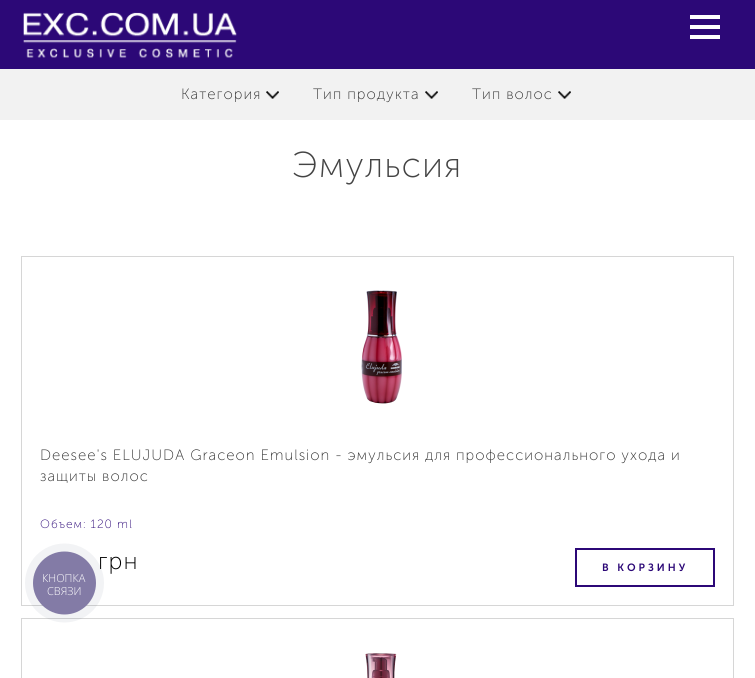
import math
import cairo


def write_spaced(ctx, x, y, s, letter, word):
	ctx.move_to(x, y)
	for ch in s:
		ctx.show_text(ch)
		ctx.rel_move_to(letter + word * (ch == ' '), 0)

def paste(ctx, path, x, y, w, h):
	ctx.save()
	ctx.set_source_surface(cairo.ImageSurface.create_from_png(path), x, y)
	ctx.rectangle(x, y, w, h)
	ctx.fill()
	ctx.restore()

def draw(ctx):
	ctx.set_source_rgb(1, 1, 1)
	ctx.paint()
	ctx.set_source_rgb(0.173, 0.035, 0.467)
	ctx.rectangle(0, 0, 755, 69)
	ctx.fill()
	paste(ctx, 'media/1.png', 23, 12, 214, 46)
	ctx.set_source_rgb(1, 1, 1)
	ctx.rectangle(690, 25, 30, 4)
	ctx.rectangle(690, 15, 30, 4)
	ctx.rectangle(690, 35, 30, 4)
	ctx.fill()
	ctx.set_source_rgb(0.949, 0.949, 0.949)
	ctx.rectangle(0, 69, 755, 51)
	ctx.fill()
	ctx.select_font_face('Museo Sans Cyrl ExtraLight')
	ctx.set_font_size(15)
	ctx.set_source_rgb(0.2, 0.2, 0.2)
	write_spaced(ctx, 181, 99, 'Категория', 1, 0)
	paste(ctx, 'media/2.png', 266, 91, 13, 8)
	write_spaced(ctx, 313, 99, 'Тип продукта', 1, 0)
	paste(ctx, 'media/2.png', 425, 91, 13, 8)
	write_spaced(ctx, 472, 99, 'Тип волос', 1, 0)
	paste(ctx, 'media/3.png', 558, 91, 13, 8)
	ctx.set_font_size(36)
	ctx.set_source_rgb(0.267, 0.267, 0.267)
	write_spaced(ctx, 292, 177, 'Эмульсия', 1, 0)
	ctx.rectangle(21.5, 256.5, 712, 349)
	ctx.set_source_rgb(0.839, 0.839, 0.839)
	ctx.set_line_width(1)
	ctx.stroke()
	paste(ctx, 'media/4.png', 361, 290, 41, 114)
	ctx.set_font_size(15)
	ctx.set_source_rgb(0.2, 0.2, 0.2)
	write_spaced(ctx, 40, 460, 'Deesee\'s ELUJUDA Graceоn Emulsion - эмульсия для профессионального ухода и', 1, 0)
	write_spaced(ctx, 40, 481, 'защиты волос', 1, 0)
	ctx.set_font_size(12)
	ctx.set_source_rgb(0.173, 0.035, 0.467)
	write_spaced(ctx, 40, 528, 'Объем: 120 ml', 1, 0)
	ctx.set_font_size(24)
	ctx.set_source_rgb(0, 0, 0)
	write_spaced(ctx, 98, 569, 'грн', 1, 0)
	ctx.rectangle(576, 549, 138, 37)
	ctx.set_source_rgb(0.173, 0.035, 0.467)
	ctx.set_line_width(2)
	ctx.stroke()
	ctx.select_font_face('Museo Sans Cyrl SemiBold')
	ctx.set_font_size(10.5)
	write_spaced(ctx, 602, 571, 'В КОРЗИНУ', 3, 0)
	ctx.rectangle(21.5, 618.5, 712, 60)
	ctx.set_source_rgb(0.839, 0.839, 0.839)
	ctx.set_line_width(1)
	ctx.stroke()
	paste(ctx, 'media/5.png', 365, 653, 32, 25)
	ctx.set_source_rgba(0.165, 0.251, 0.365, 0.06)
	ctx.arc(64.5, 583, 39.5, 0, 2 * math.pi)
	ctx.fill()
	ctx.set_source_rgb(0.514, 0.482, 0.651)
	ctx.arc(64.5, 583, 31.5, 0, 2 * math.pi)
	ctx.fill()
	ctx.select_font_face('Open Sans Light')
	ctx.set_font_size(11)
	ctx.set_source_rgb(1, 1, 1)
	ctx.move_to(42, 582)
	ctx.show_text('КНОПКА')
	ctx.move_to(47, 595)
	ctx.show_text('СВЯЗИ')


surface = cairo.ImageSurface(cairo.FORMAT_RGB24, 755, 678)
ctx = cairo.Context(surface)
options = cairo.FontOptions()
options.set_hint_metrics(cairo.HINT_METRICS_OFF)
options.set_hint_style(cairo.HINT_STYLE_NONE)
ctx.set_font_options(options)
ctx.set_miter_limit(4)
draw(ctx)
surface.write_to_png('image.png')
